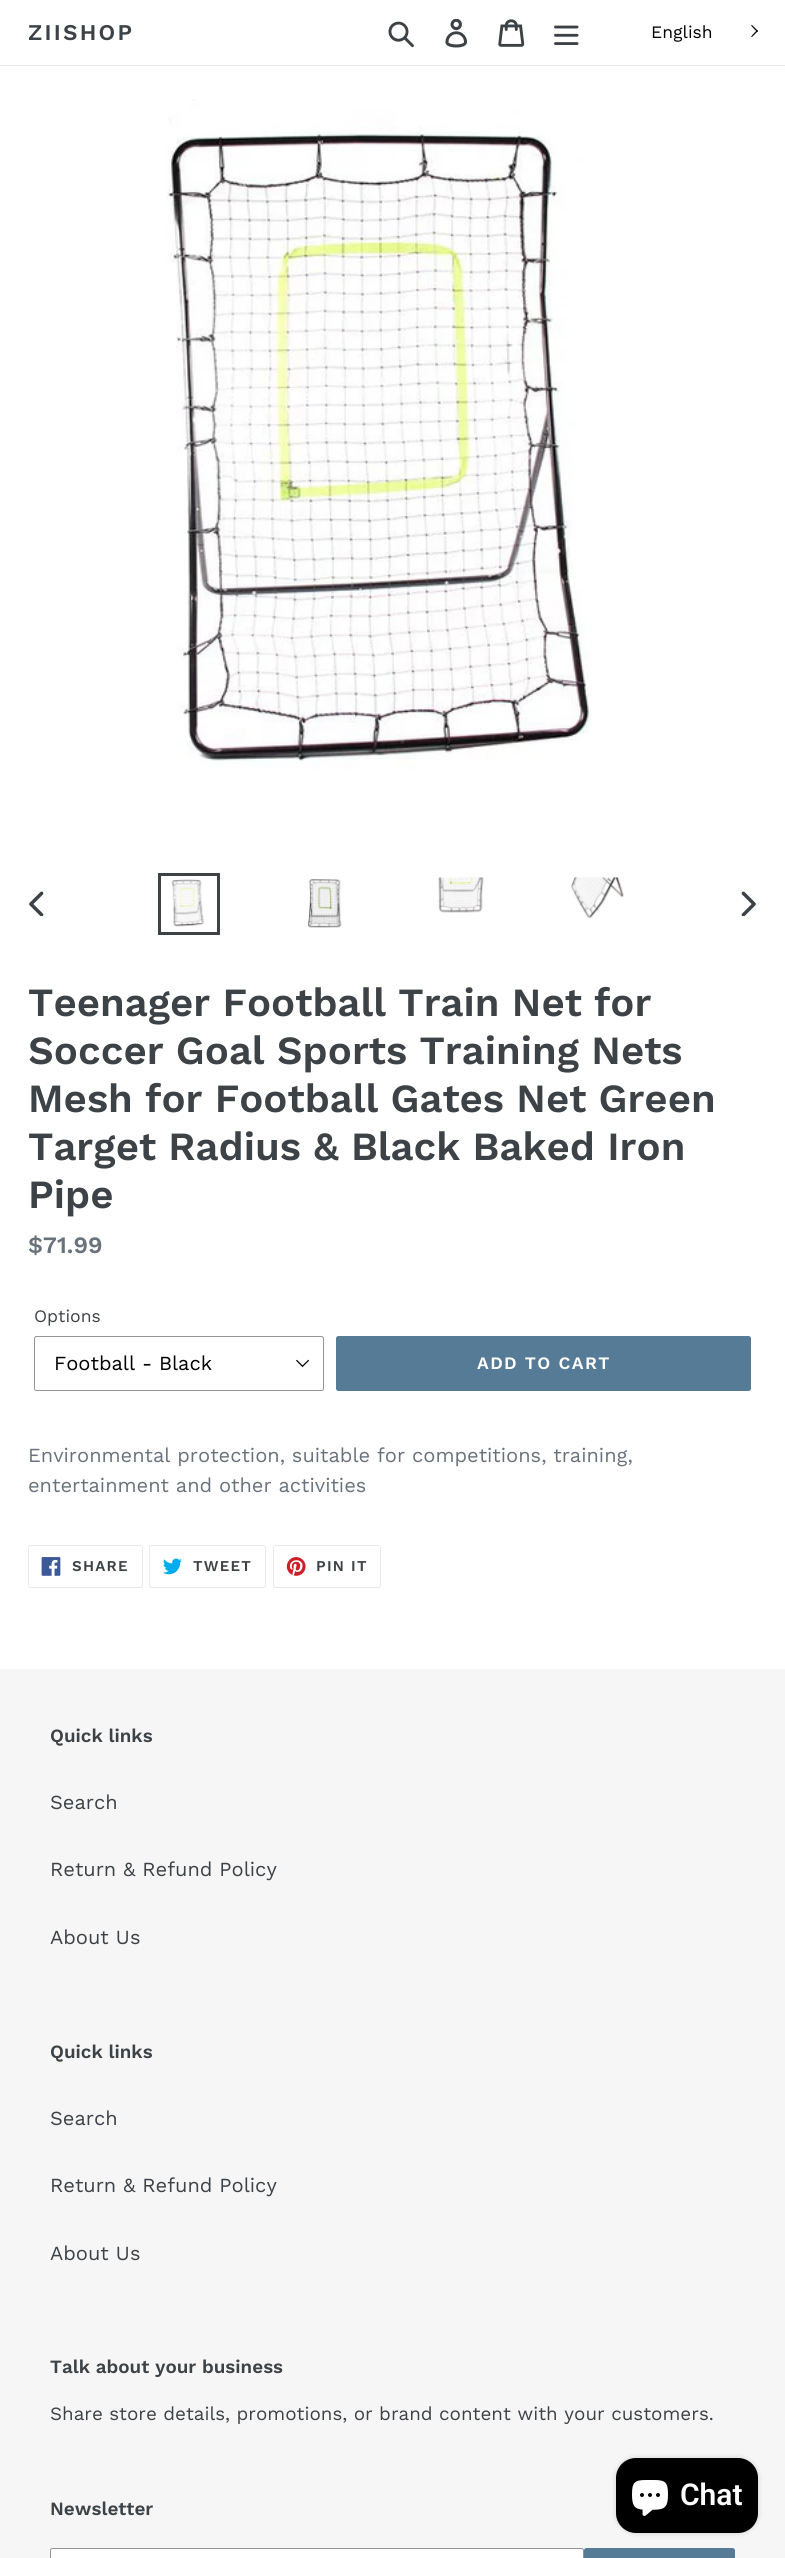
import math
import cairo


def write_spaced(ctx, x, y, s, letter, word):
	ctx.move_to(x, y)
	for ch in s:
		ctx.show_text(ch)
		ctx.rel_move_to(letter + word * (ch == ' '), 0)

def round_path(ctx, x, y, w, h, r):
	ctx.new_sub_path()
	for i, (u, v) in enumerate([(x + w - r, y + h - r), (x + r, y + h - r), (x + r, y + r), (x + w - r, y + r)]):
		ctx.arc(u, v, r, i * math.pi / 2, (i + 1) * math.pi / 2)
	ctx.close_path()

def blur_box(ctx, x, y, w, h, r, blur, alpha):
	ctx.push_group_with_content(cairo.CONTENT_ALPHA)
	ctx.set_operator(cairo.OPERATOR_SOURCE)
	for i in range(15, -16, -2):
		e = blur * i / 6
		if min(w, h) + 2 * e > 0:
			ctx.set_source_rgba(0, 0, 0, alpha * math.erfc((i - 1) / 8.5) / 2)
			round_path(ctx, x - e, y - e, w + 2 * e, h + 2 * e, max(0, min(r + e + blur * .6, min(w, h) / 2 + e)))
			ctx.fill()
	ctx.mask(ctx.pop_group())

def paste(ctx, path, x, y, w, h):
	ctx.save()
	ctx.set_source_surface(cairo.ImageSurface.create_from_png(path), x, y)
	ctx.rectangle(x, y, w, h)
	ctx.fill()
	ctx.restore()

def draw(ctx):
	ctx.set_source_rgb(1, 1, 1)
	ctx.paint()
	ctx.set_source_rgb(0.91, 0.914, 0.922)
	ctx.rectangle(0, 65, 785, 1)
	ctx.fill()
	ctx.select_font_face('Work Sans SemiBold')
	ctx.set_font_size(22.5)
	ctx.set_source_rgb(0.239, 0.259, 0.275)
	write_spaced(ctx, 28, 40, 'ZIISHOP', 2.25, 0)
	paste(ctx, 'media/1.png', 388, 21, 26, 27)
	paste(ctx, 'media/2.png', 445, 19, 22, 29)
	paste(ctx, 'media/3.png', 498, 19, 27, 28)
	paste(ctx, 'media/4.png', 554, 25, 25, 20)
	ctx.select_font_face('Work Sans')
	ctx.set_font_size(17.5)
	ctx.set_source_rgb(0, 0, 0)
	ctx.move_to(651, 38)
	ctx.show_text('English')
	ctx.new_path()
	ctx.move_to(752, 25)
	ctx.line_to(758, 31)
	ctx.line_to(757, 32)
	ctx.line_to(751, 25.5)
	ctx.close_path()
	ctx.fill()
	ctx.new_path()
	ctx.move_to(757, 30)
	ctx.line_to(758, 31)
	ctx.line_to(752, 37)
	ctx.line_to(751, 36.5)
	ctx.close_path()
	ctx.fill()
	paste(ctx, 'media/5.png', 166, 99, 426, 670)
	paste(ctx, 'media/6.png', 29, 891, 15, 25)
	ctx.rectangle(159.5, 874.5, 59, 59)
	ctx.set_source_rgb(0.239, 0.259, 0.275)
	ctx.set_line_width(3)
	ctx.stroke()
	paste(ctx, 'media/7.png', 171, 879, 34, 48)
	paste(ctx, 'media/8.png', 308, 879, 34, 49)
	paste(ctx, 'media/9.png', 438, 877, 46, 36)
	paste(ctx, 'media/10.png', 571, 877, 53, 42)
	paste(ctx, 'media/11.png', 741, 891, 15, 25)
	ctx.select_font_face('Work Sans SemiBold')
	ctx.set_font_size(40)
	for x, y, s in [
		(28, 1016, 'Teenager Football Train Net for'),
		(28, 1064, 'Soccer Goal Sports Training Nets'),
		(28, 1112, 'Mesh for Football Gates Net Green'),
		(28, 1160, 'Target Radius & Black Baked Iron'),
		(28, 1208, 'Pipe'),
	]:
		ctx.move_to(x, y)
		ctx.show_text(s)
	ctx.set_font_size(23.5)
	ctx.set_source_rgb(0.412, 0.447, 0.482)
	ctx.move_to(28, 1253)
	ctx.show_text('$71.99')
	ctx.select_font_face('Work Sans')
	ctx.set_font_size(17.5)
	ctx.set_source_rgb(0.239, 0.259, 0.275)
	ctx.move_to(34, 1322)
	ctx.show_text('Options')
	paste(ctx, 'media/12.png', 296, 1359, 13, 9)
	round_path(ctx, 34.5, 1336.5, 289, 54, 2)
	ctx.set_source_rgb(0.58, 0.58, 0.58)
	ctx.set_line_width(1)
	ctx.stroke()
	ctx.set_font_size(20)
	ctx.set_source_rgb(0, 0, 0)
	ctx.move_to(54, 1370)
	ctx.show_text('Football - Black')
	ctx.set_source_rgb(0.333, 0.482, 0.592)
	round_path(ctx, 336, 1336, 415, 55, 2.5)
	ctx.fill()
	ctx.select_font_face('Work Sans SemiBold')
	ctx.set_font_size(17.5)
	ctx.set_source_rgb(1, 1, 1)
	write_spaced(ctx, 477, 1369, 'ADD TO CART', 1.4, 0)
	ctx.select_font_face('Work Sans')
	ctx.set_font_size(20)
	ctx.set_source_rgb(0.412, 0.447, 0.482)
	ctx.move_to(28, 1462)
	ctx.show_text('Environmental protection, suitable for competitions, training,')
	ctx.move_to(28, 1492)
	ctx.show_text('entertainment and other activities')
	round_path(ctx, 28.5, 1545.5, 114, 42, 2)
	ctx.set_source_rgb(0.91, 0.914, 0.922)
	ctx.stroke()
	paste(ctx, 'media/13.png', 41, 1557, 20, 19)
	ctx.select_font_face('Work Sans SemiBold')
	ctx.set_font_size(15)
	ctx.set_source_rgb(0.239, 0.259, 0.275)
	write_spaced(ctx, 72, 1571, 'SHARE', 1.25, 0)
	round_path(ctx, 149.5, 1545.5, 116, 42, 2)
	ctx.set_source_rgb(0.91, 0.914, 0.922)
	ctx.stroke()
	paste(ctx, 'media/14.png', 163, 1558, 19, 17)
	ctx.set_source_rgb(0.239, 0.259, 0.275)
	write_spaced(ctx, 193, 1571, 'TWEET', 1.25, 0)
	round_path(ctx, 273.5, 1545.5, 107, 42, 2)
	ctx.set_source_rgb(0.91, 0.914, 0.922)
	ctx.stroke()
	paste(ctx, 'media/15.png', 286, 1557, 20, 19)
	ctx.set_source_rgb(0.239, 0.259, 0.275)
	write_spaced(ctx, 316, 1571, 'PIN IT', 1.25, 0)
	ctx.set_source_rgb(0.961, 0.961, 0.961)
	ctx.rectangle(0, 1669, 785, 889)
	ctx.fill()
	ctx.set_font_size(18.75)
	ctx.set_source_rgb(0.239, 0.259, 0.275)
	ctx.move_to(50, 1742)
	ctx.show_text('Quick links')
	ctx.select_font_face('Work Sans')
	ctx.set_font_size(20)
	for x, y, s in [
		(50, 1809, 'Search'),
		(50, 1876, 'Return & Refund Policy'),
		(50, 1944, 'About Us'),
	]:
		ctx.move_to(x, y)
		ctx.show_text(s)
	ctx.select_font_face('Work Sans SemiBold')
	ctx.set_font_size(18.75)
	ctx.move_to(50, 2058)
	ctx.show_text('Quick links')
	ctx.select_font_face('Work Sans')
	ctx.set_font_size(20)
	for x, y, s in [
		(50, 2125, 'Search'),
		(50, 2192, 'Return & Refund Policy'),
		(50, 2260, 'About Us'),
	]:
		ctx.move_to(x, y)
		ctx.show_text(s)
	ctx.select_font_face('Work Sans SemiBold')
	ctx.set_font_size(18.75)
	ctx.move_to(50, 2373)
	ctx.show_text('Talk about your business')
	ctx.select_font_face('Work Sans')
	ctx.move_to(50, 2420)
	ctx.show_text('Share store details, promotions, or brand content with your customers.')
	ctx.select_font_face('Work Sans SemiBold')
	ctx.move_to(50, 2515)
	ctx.show_text('Newsletter')
	ctx.set_source_rgb(1, 1, 1)
	round_path(ctx, 50.5, 2548.5, 533, 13, 2)
	ctx.fill_preserve()
	ctx.set_source_rgb(0.58, 0.58, 0.58)
	ctx.stroke()
	ctx.set_source_rgb(0.333, 0.482, 0.592)
	round_path(ctx, 584, 2548, 151, 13, 2.5)
	ctx.fill()
	ctx.set_source_rgb(0, 0, 0)
	blur_box(ctx, 616, 2458, 142, 75, 20, 3, 0.15)
	ctx.set_source_rgb(0, 0, 0)
	round_path(ctx, 616, 2458, 142, 75, 20)
	ctx.fill()
	paste(ctx, 'media/16.png', 632, 2480, 36, 36)
	ctx.select_font_face('Roboto SemiBold')
	ctx.set_font_size(30)
	ctx.set_source_rgb(1, 1, 1)
	ctx.move_to(680, 2505)
	ctx.show_text('Chat')


surface = cairo.ImageSurface(cairo.FORMAT_RGB24, 785, 2558)
ctx = cairo.Context(surface)
options = cairo.FontOptions()
options.set_hint_metrics(cairo.HINT_METRICS_OFF)
options.set_hint_style(cairo.HINT_STYLE_NONE)
ctx.set_font_options(options)
ctx.set_miter_limit(4)
draw(ctx)
surface.write_to_png('image.png')
